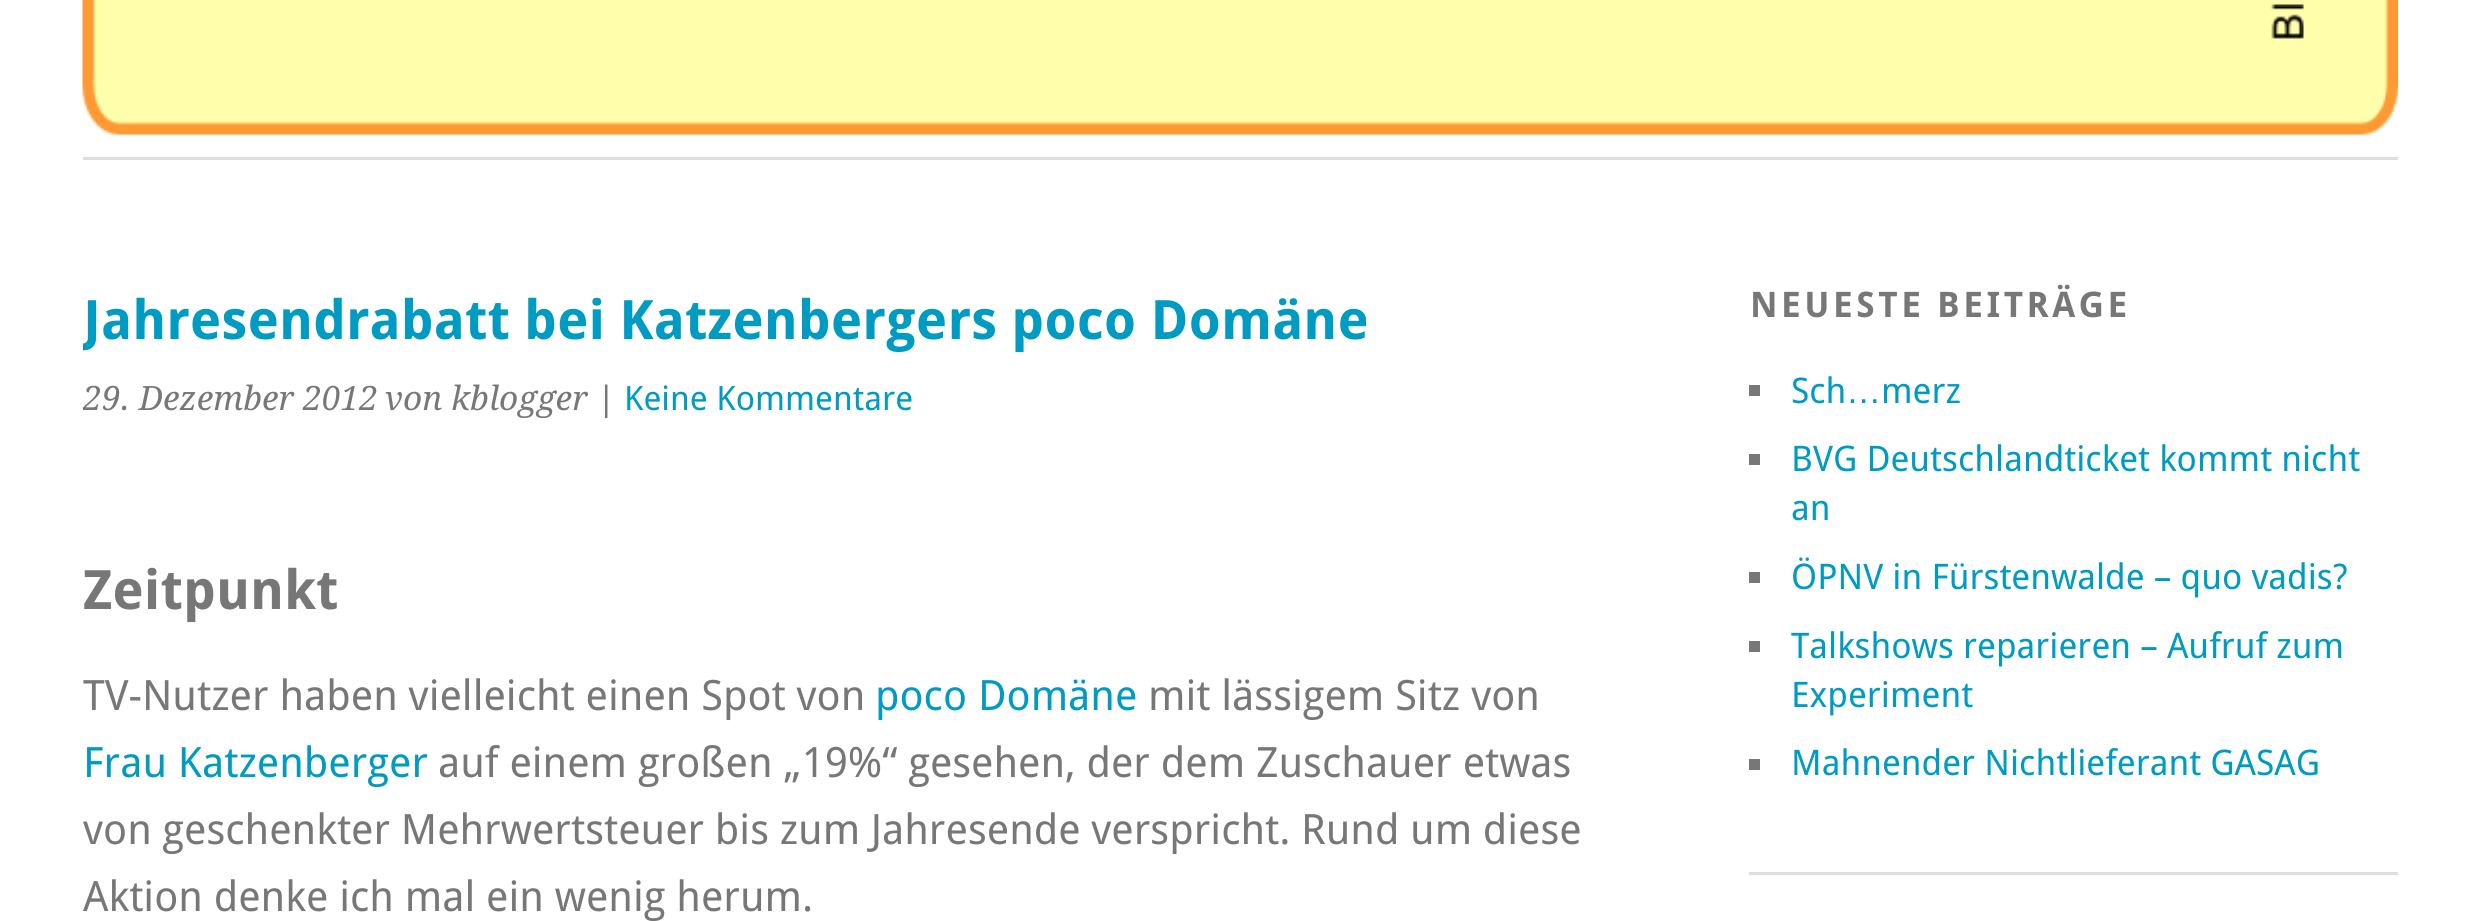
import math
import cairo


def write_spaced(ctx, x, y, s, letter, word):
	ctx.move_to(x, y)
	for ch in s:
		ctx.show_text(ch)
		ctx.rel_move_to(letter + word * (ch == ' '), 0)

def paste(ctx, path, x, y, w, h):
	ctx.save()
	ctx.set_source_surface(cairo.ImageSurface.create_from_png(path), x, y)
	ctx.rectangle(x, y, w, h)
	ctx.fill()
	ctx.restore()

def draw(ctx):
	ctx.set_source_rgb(1, 1, 1)
	ctx.paint()
	paste(ctx, 'media/1.png', 82, 0, 2316, 135)
	ctx.set_source_rgb(0.867, 0.867, 0.867)
	ctx.rectangle(83, 157, 2315, 3)
	ctx.fill()
	ctx.save()
	ctx.rectangle(83, 283, 1537, 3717)
	ctx.clip()
	ctx.select_font_face('Droid Sans', cairo.FONT_SLANT_NORMAL, cairo.FONT_WEIGHT_BOLD)
	ctx.set_font_size(54.3)
	ctx.set_source_rgb(0, 0.608, 0.761)
	ctx.move_to(83, 339)
	ctx.show_text('Jahresendrabatt bei Katzenbergers poco Domäne')
	ctx.select_font_face('Droid Serif', cairo.FONT_SLANT_ITALIC)
	ctx.set_font_size(33.5)
	ctx.set_source_rgb(0.467, 0.467, 0.467)
	ctx.move_to(83, 410)
	ctx.show_text('29. Dezember 2012')
	ctx.restore()
	ctx.select_font_face('Droid Serif', cairo.FONT_SLANT_ITALIC)
	ctx.set_font_size(33.5)
	ctx.set_source_rgb(0.467, 0.467, 0.467)
	ctx.move_to(385, 410)
	ctx.show_text('von kblogger')
	ctx.select_font_face('Droid Sans')
	ctx.move_to(597, 410)
	ctx.show_text('|')
	ctx.set_source_rgb(0, 0.608, 0.761)
	ctx.move_to(624, 410)
	ctx.show_text('Keine Kommentare')
	ctx.select_font_face('Droid Sans', cairo.FONT_SLANT_NORMAL, cairo.FONT_WEIGHT_BOLD)
	ctx.set_font_size(54.3)
	ctx.set_source_rgb(0.467, 0.467, 0.467)
	ctx.move_to(83, 609)
	ctx.show_text('Zeitpunkt')
	ctx.save()
	ctx.rectangle(83, 283, 1537, 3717)
	ctx.clip()
	ctx.select_font_face('Droid Sans')
	ctx.set_font_size(41.8)
	ctx.move_to(83, 710)
	ctx.show_text('TV-Nutzer haben vielleicht einen Spot von')
	ctx.restore()
	ctx.select_font_face('Droid Sans')
	ctx.set_font_size(41.8)
	ctx.set_source_rgb(0, 0.608, 0.761)
	ctx.move_to(875, 710)
	ctx.show_text('poco Domäne')
	ctx.set_source_rgb(0.467, 0.467, 0.467)
	ctx.move_to(1148, 710)
	ctx.show_text('mit lässigem Sitz von')
	ctx.set_source_rgb(0, 0.608, 0.761)
	ctx.move_to(83, 777)
	ctx.show_text('Frau Katzenberger')
	ctx.set_source_rgb(0.467, 0.467, 0.467)
	ctx.move_to(438, 777)
	ctx.show_text('auf einem großen „19%“ gesehen, der dem Zuschauer etwas')
	write_spaced(ctx, 83, 844, 'von geschenkter Mehrwertsteuer bis zum Jahresende verspricht. Rund um diese', 0, -0.25)
	ctx.move_to(83, 911)
	ctx.show_text('Aktion denke ich mal ein wenig herum.')
	ctx.set_source_rgb(0.867, 0.867, 0.867)
	ctx.rectangle(1749, 872, 649, 3)
	ctx.fill()
	ctx.select_font_face('Droid Sans', cairo.FONT_SLANT_NORMAL, cairo.FONT_WEIGHT_BOLD)
	ctx.set_font_size(35.25)
	ctx.set_source_rgb(0.467, 0.467, 0.467)
	write_spaced(ctx, 1750, 317, 'NEUESTE BEITRÄGE', 3.5, 0)
	ctx.rectangle(1749, 385, 11, 11)
	ctx.fill()
	ctx.select_font_face('Droid Sans')
	ctx.set_source_rgb(0, 0.608, 0.761)
	ctx.move_to(1791, 403)
	ctx.show_text('Sch')
	ctx.move_to(1881, 403)
	ctx.show_text('merz')
	ctx.select_font_face('Liberation Sans')
	ctx.move_to(1846, 403)
	ctx.show_text('…')
	ctx.set_source_rgb(0.467, 0.467, 0.467)
	ctx.rectangle(1749, 454, 11, 11)
	ctx.fill()
	ctx.select_font_face('Droid Sans')
	ctx.set_source_rgb(0, 0.608, 0.761)
	ctx.move_to(1791, 471)
	ctx.show_text('BVG Deutschlandticket kommt nicht')
	ctx.move_to(1791, 520)
	ctx.show_text('an')
	ctx.set_source_rgb(0.467, 0.467, 0.467)
	ctx.rectangle(1749, 572, 11, 11)
	ctx.fill()
	ctx.set_source_rgb(0, 0.608, 0.761)
	ctx.move_to(1791, 589)
	ctx.show_text('ÖPNV in Fürstenwalde – quo vadis?')
	ctx.set_source_rgb(0.467, 0.467, 0.467)
	ctx.rectangle(1749, 641, 11, 11)
	ctx.fill()
	ctx.set_source_rgb(0, 0.608, 0.761)
	ctx.move_to(1791, 658)
	ctx.show_text('Talkshows reparieren – Aufruf zum')
	ctx.move_to(1791, 707)
	ctx.show_text('Experiment')
	ctx.set_source_rgb(0.467, 0.467, 0.467)
	ctx.rectangle(1749, 759, 11, 11)
	ctx.fill()
	ctx.set_source_rgb(0, 0.608, 0.761)
	ctx.move_to(1791, 775)
	ctx.show_text('Mahnender Nichtlieferant GASAG')


surface = cairo.ImageSurface(cairo.FORMAT_RGB24, 2478, 921)
ctx = cairo.Context(surface)
options = cairo.FontOptions()
options.set_hint_metrics(cairo.HINT_METRICS_OFF)
options.set_hint_style(cairo.HINT_STYLE_NONE)
ctx.set_font_options(options)
ctx.set_miter_limit(4)
draw(ctx)
surface.write_to_png('image.png')
